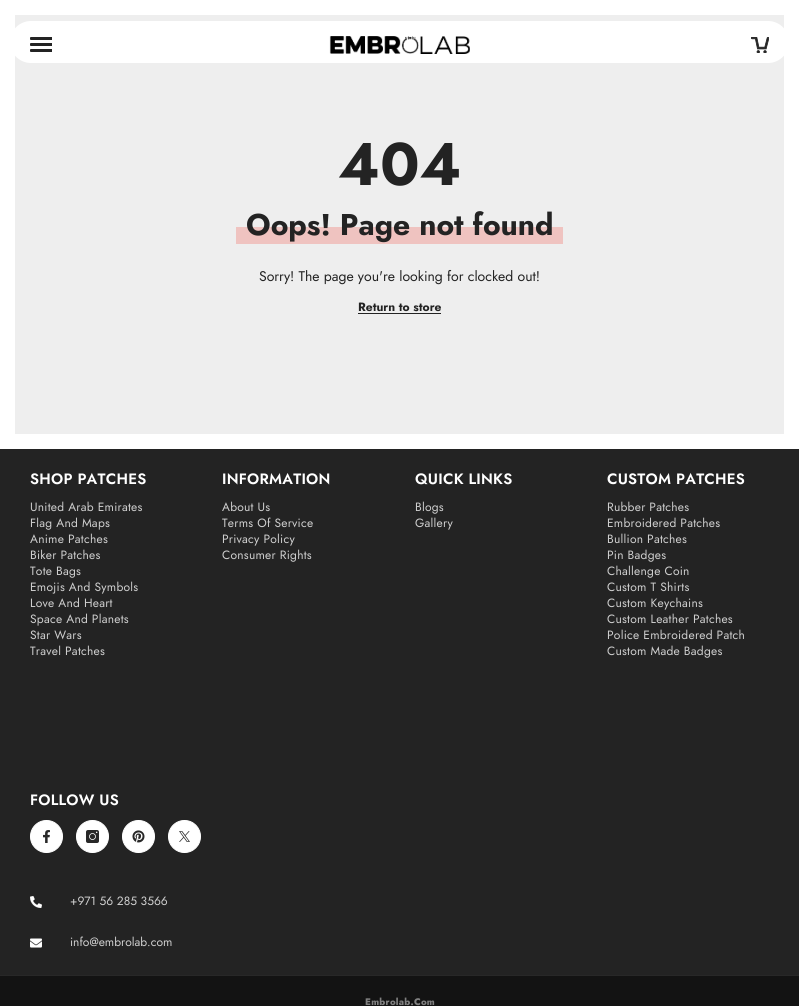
import math
import cairo


def write_spaced(ctx, x, y, s, letter, word):
	ctx.move_to(x, y)
	for ch in s:
		ctx.show_text(ch)
		ctx.rel_move_to(letter + word * (ch == ' '), 0)

def round_path(ctx, x, y, w, h, r):
	ctx.new_sub_path()
	for i, (u, v) in enumerate([(x + w - r, y + h - r), (x + r, y + h - r), (x + r, y + r), (x + w - r, y + r)]):
		ctx.arc(u, v, r, i * math.pi / 2, (i + 1) * math.pi / 2)
	ctx.close_path()

def paste(ctx, path, x, y, w, h):
	ctx.save()
	ctx.set_source_surface(cairo.ImageSurface.create_from_png(path), x, y)
	ctx.rectangle(x, y, w, h)
	ctx.fill()
	ctx.restore()

def draw(ctx):
	ctx.set_source_rgb(1, 1, 1)
	ctx.paint()
	ctx.set_source_rgb(0.933, 0.933, 0.933)
	ctx.rectangle(15, 15, 769, 419)
	ctx.fill()
	ctx.set_source_rgb(1, 1, 1)
	round_path(ctx, 10, 21, 779, 42, 21)
	ctx.fill()
	paste(ctx, 'media/1.png', 30, 37, 22, 15)
	paste(ctx, 'media/2.png', 329, 36, 141, 18)
	paste(ctx, 'media/3.png', 751, 37, 18, 16)
	ctx.select_font_face('Jost', cairo.FONT_SLANT_NORMAL, cairo.FONT_WEIGHT_BOLD)
	ctx.set_font_size(60)
	ctx.set_source_rgb(0.137, 0.137, 0.137)
	ctx.move_to(338, 185)
	ctx.show_text('404')
	ctx.set_source_rgb(0.937, 0.765, 0.753)
	ctx.rectangle(236, 227, 327, 17)
	ctx.fill()
	ctx.set_font_size(30)
	ctx.set_source_rgb(0.137, 0.137, 0.137)
	ctx.move_to(246, 235)
	ctx.show_text('Oops! Page not found')
	ctx.select_font_face('Jost')
	ctx.set_font_size(14)
	ctx.move_to(259, 281)
	ctx.show_text('Sorry! The page you\'re looking for clocked out!')
	ctx.select_font_face('Jost', cairo.FONT_SLANT_NORMAL, cairo.FONT_WEIGHT_BOLD)
	ctx.set_font_size(12)
	ctx.move_to(358, 311)
	ctx.show_text('Return to store')
	ctx.rectangle(358, 313, 83, 1)
	ctx.fill()
	ctx.rectangle(0, 449, 799, 526)
	ctx.fill()
	ctx.select_font_face('Jost SemiBold')
	ctx.set_font_size(15)
	ctx.set_source_rgb(1, 1, 1)
	write_spaced(ctx, 30, 484, 'SHOP PATCHES', 0.25, 0)
	ctx.select_font_face('Jost')
	ctx.set_font_size(12)
	ctx.set_source_rgb(0.812, 0.812, 0.812)
	for x, y, s in [
		(30, 511, 'United Arab Emirates'),
		(30, 527, 'Flag And Maps'),
		(30, 543, 'Anime Patches'),
		(30, 559, 'Biker Patches'),
		(30, 575, 'Tote Bags'),
		(30, 591, 'Emojis And Symbols'),
		(30, 607, 'Love And Heart'),
		(30, 623, 'Space And Planets'),
		(30, 639, 'Star Wars'),
		(30, 655, 'Travel Patches'),
	]:
		write_spaced(ctx, x, y, s, 0.25, 0)
	ctx.select_font_face('Jost SemiBold')
	ctx.set_font_size(15)
	ctx.set_source_rgb(1, 1, 1)
	write_spaced(ctx, 222, 484, 'INFORMATION', 0.25, 0)
	ctx.select_font_face('Jost')
	ctx.set_font_size(12)
	ctx.set_source_rgb(0.812, 0.812, 0.812)
	for x, y, s in [
		(222, 511, 'About Us'),
		(222, 527, 'Terms Of Service'),
		(222, 543, 'Privacy Policy'),
		(222, 559, 'Consumer Rights'),
	]:
		write_spaced(ctx, x, y, s, 0.25, 0)
	ctx.select_font_face('Jost SemiBold')
	ctx.set_font_size(15)
	ctx.set_source_rgb(1, 1, 1)
	write_spaced(ctx, 415, 484, 'QUICK LINKS', 0.25, 0)
	ctx.select_font_face('Jost')
	ctx.set_font_size(12)
	ctx.set_source_rgb(0.812, 0.812, 0.812)
	write_spaced(ctx, 415, 511, 'Blogs', 0.25, 0)
	write_spaced(ctx, 415, 527, 'Gallery', 0.25, 0)
	ctx.select_font_face('Jost SemiBold')
	ctx.set_font_size(15)
	ctx.set_source_rgb(1, 1, 1)
	write_spaced(ctx, 607, 484, 'CUSTOM PATCHES', 0.25, 0)
	ctx.select_font_face('Jost')
	ctx.set_font_size(12)
	ctx.set_source_rgb(0.812, 0.812, 0.812)
	for x, y, s in [
		(607, 511, 'Rubber Patches'),
		(607, 527, 'Embroidered Patches'),
		(607, 543, 'Bullion Patches'),
		(607, 559, 'Pin Badges'),
		(607, 575, 'Challenge Coin'),
		(607, 591, 'Custom T Shirts'),
		(607, 607, 'Custom Keychains'),
		(607, 623, 'Custom Leather Patches'),
		(607, 639, 'Police Embroidered Patch'),
		(607, 655, 'Custom Made Badges'),
	]:
		write_spaced(ctx, x, y, s, 0.25, 0)
	ctx.select_font_face('Jost SemiBold')
	ctx.set_font_size(15)
	ctx.set_source_rgb(1, 1, 1)
	write_spaced(ctx, 30, 805, 'FOLLOW US', 0.25, 0)
	ctx.new_path()
	ctx.arc(46.5, 836.5, 16, 0, 2 * math.pi)
	ctx.fill_preserve()
	ctx.set_line_width(1)
	ctx.stroke()
	paste(ctx, 'media/4.png', 43, 830, 7, 13)
	ctx.arc(92.5, 836.5, 16, 0, 2 * math.pi)
	ctx.fill_preserve()
	ctx.stroke()
	paste(ctx, 'media/5.png', 86, 830, 13, 13)
	ctx.arc(138.5, 836.5, 16, 0, 2 * math.pi)
	ctx.fill_preserve()
	ctx.stroke()
	paste(ctx, 'media/6.png', 132, 830, 13, 13)
	ctx.arc(184.5, 836.5, 16, 0, 2 * math.pi)
	ctx.fill_preserve()
	ctx.stroke()
	paste(ctx, 'media/7.png', 179, 831, 11, 11)
	paste(ctx, 'media/8.png', 30, 896, 12, 12)
	ctx.select_font_face('Jost')
	ctx.set_font_size(12)
	ctx.set_source_rgb(0.812, 0.812, 0.812)
	ctx.move_to(70, 905)
	ctx.show_text('+971 56 285 3566')
	paste(ctx, 'media/9.png', 30, 938, 12, 10)
	ctx.move_to(70, 946)
	ctx.show_text('info@embrolab.com')
	ctx.set_source_rgb(0.078, 0.078, 0.078)
	ctx.rectangle(0, 976, 799, 30)
	ctx.fill()
	ctx.set_source_rgb(0.157, 0.157, 0.157)
	ctx.rectangle(0, 975, 799, 1)
	ctx.fill()
	ctx.select_font_face('Jost ExtraBold')
	ctx.set_font_size(9.5)
	ctx.set_source_rgb(0.502, 0.502, 0.502)
	write_spaced(ctx, 365, 1005, 'Embrolab.Com', 0.25, 0)


surface = cairo.ImageSurface(cairo.FORMAT_RGB24, 799, 1006)
ctx = cairo.Context(surface)
options = cairo.FontOptions()
options.set_hint_metrics(cairo.HINT_METRICS_OFF)
options.set_hint_style(cairo.HINT_STYLE_NONE)
ctx.set_font_options(options)
ctx.set_miter_limit(4)
draw(ctx)
surface.write_to_png('image.png')
